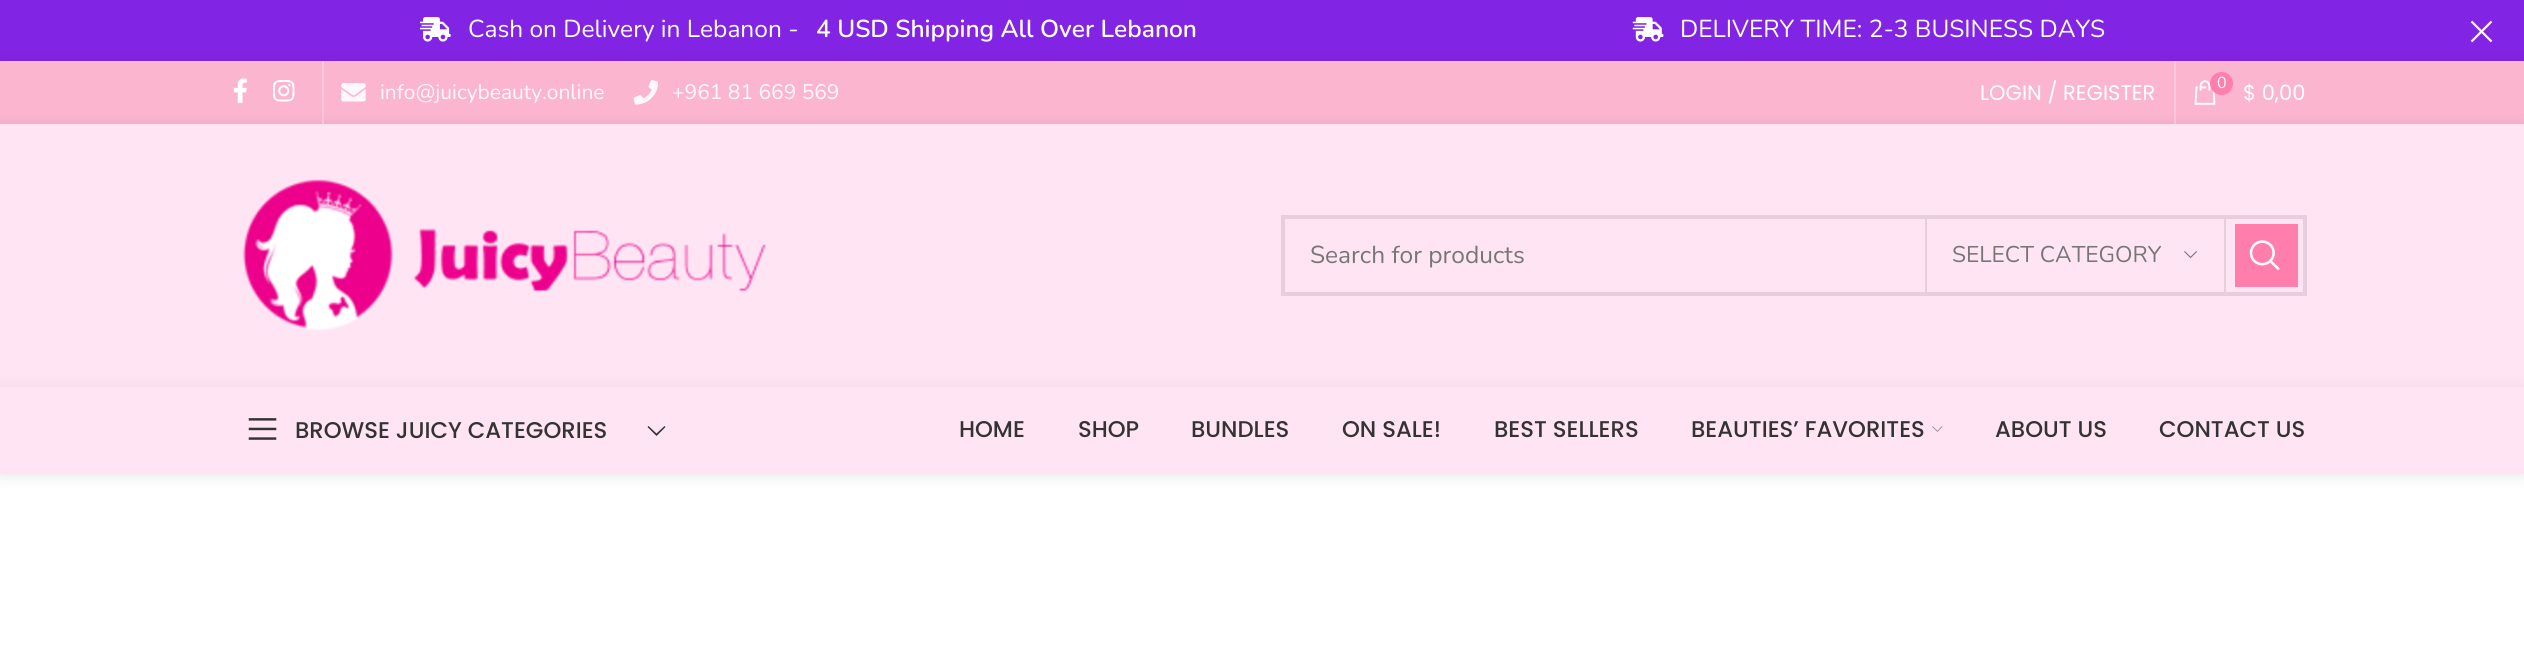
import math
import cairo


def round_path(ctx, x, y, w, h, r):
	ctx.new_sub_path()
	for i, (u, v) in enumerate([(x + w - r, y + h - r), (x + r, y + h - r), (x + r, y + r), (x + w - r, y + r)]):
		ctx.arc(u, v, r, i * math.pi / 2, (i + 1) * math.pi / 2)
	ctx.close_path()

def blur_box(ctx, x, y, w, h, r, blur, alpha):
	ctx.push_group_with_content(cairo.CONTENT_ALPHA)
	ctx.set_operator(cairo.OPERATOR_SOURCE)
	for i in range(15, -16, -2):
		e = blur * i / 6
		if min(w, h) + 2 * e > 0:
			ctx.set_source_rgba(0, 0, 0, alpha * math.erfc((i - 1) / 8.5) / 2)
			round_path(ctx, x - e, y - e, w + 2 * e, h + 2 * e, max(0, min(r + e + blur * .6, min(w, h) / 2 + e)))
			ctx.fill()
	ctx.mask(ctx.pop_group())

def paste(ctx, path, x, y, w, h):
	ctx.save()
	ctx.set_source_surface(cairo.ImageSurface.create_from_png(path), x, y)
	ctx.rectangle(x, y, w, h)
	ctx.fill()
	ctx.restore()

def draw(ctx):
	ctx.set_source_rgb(0.51, 0.141, 0.89)
	ctx.paint()
	paste(ctx, 'media/1.png', 420, 17, 31, 25)
	ctx.select_font_face('Nunito')
	ctx.set_font_size(24.5)
	ctx.set_source_rgb(1, 1, 1)
	ctx.move_to(468, 37)
	ctx.show_text('Cash on Delivery in Lebanon -')
	ctx.select_font_face('Nunito SemiBold')
	ctx.move_to(816, 37)
	ctx.show_text('4 USD Shipping All Over Lebanon')
	paste(ctx, 'media/2.png', 1632, 17, 32, 25)
	ctx.select_font_face('Nunito')
	ctx.move_to(1680, 37)
	ctx.show_text('DELIVERY TIME: 2-3 BUSINESS DAYS')
	paste(ctx, 'media/3.png', 2470, 20, 23, 23)
	ctx.set_source_rgb(0, 0, 0)
	blur_box(ctx, 0, 63, 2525, 63, 0, 7, 0.1)
	ctx.set_source_rgb(0.988, 0.71, 0.812)
	ctx.rectangle(0, 61, 2524, 63)
	ctx.fill()
	paste(ctx, 'media/4.png', 233, 78, 14, 25)
	paste(ctx, 'media/5.png', 273, 80, 22, 22)
	ctx.set_source_rgb(0, 0, 0)
	blur_box(ctx, 0, 126, 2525, 263, 0, 7, 0.1)
	ctx.set_source_rgba(1, 1, 1, 0.25)
	ctx.rectangle(322, 61, 2, 63)
	ctx.fill()
	paste(ctx, 'media/6.png', 341, 83, 25, 19)
	ctx.set_font_size(21)
	ctx.set_source_rgb(1, 0.973, 0.98)
	ctx.move_to(380, 99)
	ctx.show_text('info@juicybeauty.online')
	paste(ctx, 'media/7.png', 633, 80, 25, 25)
	ctx.move_to(672, 99)
	ctx.show_text('+961 81 669 569')
	ctx.select_font_face('Poppins')
	ctx.set_source_rgb(1, 1, 1)
	ctx.move_to(1980, 100)
	ctx.show_text('LOGIN / REGISTER')
	ctx.set_source_rgba(1, 1, 1, 0.25)
	ctx.rectangle(2174, 61, 2, 63)
	ctx.fill()
	paste(ctx, 'media/8.png', 2194, 80, 22, 25)
	ctx.set_source_rgb(1, 0.494, 0.671)
	ctx.arc(2221.5, 83.5, 11.5, 0, 2 * math.pi)
	ctx.fill()
	ctx.select_font_face('Nunito')
	ctx.set_font_size(16)
	ctx.set_source_rgb(1, 1, 1)
	ctx.move_to(2217, 88)
	ctx.show_text('0')
	ctx.select_font_face('Poppins')
	ctx.set_font_size(21)
	ctx.move_to(2243, 100)
	ctx.show_text('$ 0,00')
	ctx.set_source_rgb(1, 0.898, 0.953)
	ctx.rectangle(0, 124, 2524, 263)
	ctx.fill()
	paste(ctx, 'media/9.png', 242, 179, 524, 152)
	ctx.rectangle(1283, 217, 1022, 77)
	ctx.set_source_rgb(0.902, 0.808, 0.859)
	ctx.set_line_width(4)
	ctx.stroke()
	ctx.select_font_face('Nunito')
	ctx.set_font_size(24.5)
	ctx.set_source_rgb(0.463, 0.463, 0.463)
	ctx.move_to(1310, 263)
	ctx.show_text('Search for products')
	ctx.set_source_rgb(0.902, 0.808, 0.859)
	ctx.rectangle(2224, 219, 2, 73)
	ctx.fill()
	ctx.rectangle(1925, 219, 2, 73)
	ctx.fill()
	ctx.set_font_size(22.75)
	ctx.set_source_rgb(0.463, 0.463, 0.463)
	ctx.move_to(1952, 262)
	ctx.show_text('SELECT CATEGORY')
	paste(ctx, 'media/10.png', 2184, 251, 13, 8)
	ctx.set_source_rgb(1, 0.494, 0.671)
	ctx.rectangle(2235, 224, 63, 63)
	ctx.fill()
	paste(ctx, 'media/11.png', 2249, 240, 31, 31)
	ctx.set_source_rgb(1, 1, 1)
	ctx.rectangle(0, 474, 2524, 187)
	ctx.fill()
	ctx.set_source_rgb(0, 0, 0)
	blur_box(ctx, 0, 389, 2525, 87, 0, 7, 0.1)
	ctx.set_source_rgb(1, 0.898, 0.953)
	ctx.rectangle(0, 387, 2524, 87)
	ctx.fill()
	paste(ctx, 'media/12.png', 248, 418, 29, 22)
	ctx.select_font_face('Poppins Medium')
	ctx.set_source_rgb(0.2, 0.2, 0.2)
	ctx.move_to(295, 438)
	ctx.show_text('BROWSE JUICY CATEGORIES')
	ctx.new_path()
	ctx.move_to(664.5, 426)
	ctx.line_to(656.5, 433.5)
	ctx.line_to(648.5, 426)
	ctx.line_to(647.5, 427)
	ctx.line_to(656.5, 436)
	ctx.line_to(665.5, 427)
	ctx.close_path()
	ctx.fill()
	for x, y, s in [
		(959, 437, 'HOME'),
		(1078, 437, 'SHOP'),
		(1191, 437, 'BUNDLES'),
		(1342, 437, 'ON SALE!'),
		(1494, 437, 'BEST SELLERS'),
		(1691, 437, 'BEAUTIES’ FAVORITES'),
	]:
		ctx.move_to(x, y)
		ctx.show_text(s)
	paste(ctx, 'media/13.png', 1932, 426, 11, 6)
	ctx.move_to(1995, 437)
	ctx.show_text('ABOUT US')
	ctx.move_to(2159, 437)
	ctx.show_text('CONTACT US')


surface = cairo.ImageSurface(cairo.FORMAT_RGB24, 2524, 661)
ctx = cairo.Context(surface)
options = cairo.FontOptions()
options.set_hint_metrics(cairo.HINT_METRICS_OFF)
options.set_hint_style(cairo.HINT_STYLE_NONE)
ctx.set_font_options(options)
ctx.set_miter_limit(4)
draw(ctx)
surface.write_to_png('image.png')
